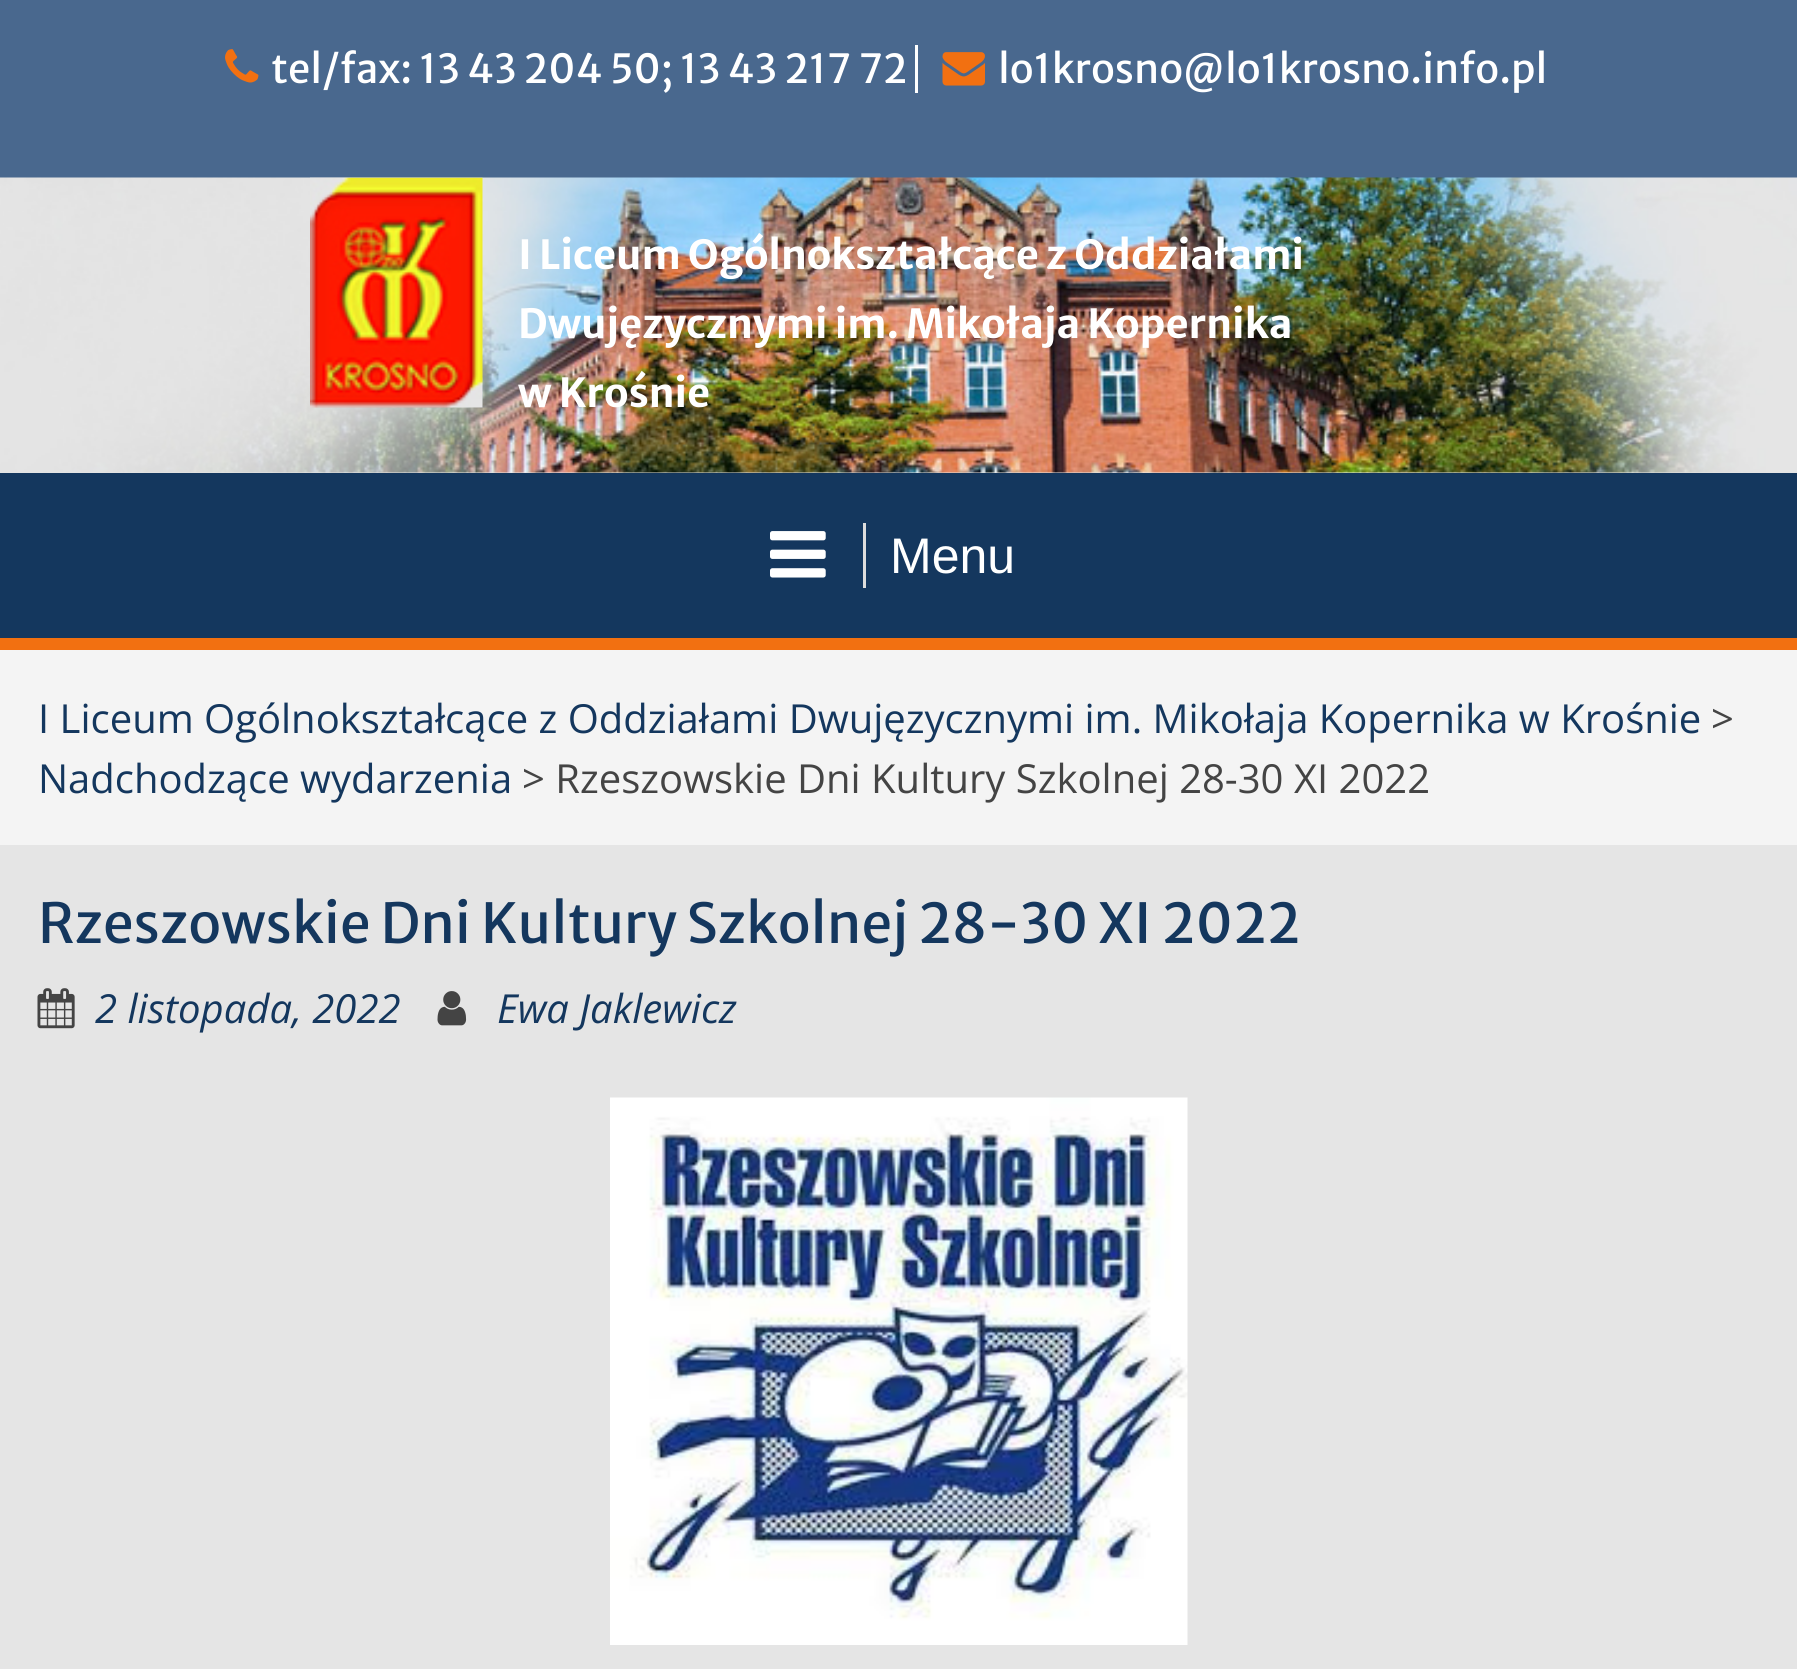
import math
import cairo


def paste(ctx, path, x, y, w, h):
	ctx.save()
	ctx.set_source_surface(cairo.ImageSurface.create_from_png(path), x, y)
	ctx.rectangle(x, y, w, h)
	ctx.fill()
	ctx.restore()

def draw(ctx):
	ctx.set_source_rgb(0.898, 0.898, 0.898)
	ctx.paint()
	ctx.set_source_rgb(0.286, 0.408, 0.557)
	ctx.rectangle(0, 0, 1797, 178)
	ctx.fill()
	paste(ctx, 'media/1.png', 225, 49, 34, 34)
	ctx.select_font_face('Merriweather Sans')
	ctx.set_font_size(40)
	ctx.set_source_rgb(1, 1, 1)
	ctx.move_to(271, 83)
	ctx.show_text('tel/fax: 13 43 204 50; 13 43 217 72')
	ctx.rectangle(915, 45, 3, 48)
	ctx.fill()
	paste(ctx, 'media/2.png', 942, 52, 43, 34)
	ctx.move_to(998, 83)
	ctx.show_text('lo1krosno@lo1krosno.info.pl')
	paste(ctx, 'media/3.png', 0, 177, 1797, 296)
	paste(ctx, 'media/4.png', 310, 177, 173, 231)
	ctx.select_font_face('Merriweather Sans', cairo.FONT_SLANT_NORMAL, cairo.FONT_WEIGHT_BOLD)
	for x, y, s in [
		(518, 269, 'I Liceum Ogólnokształcące z Oddziałami'),
		(518, 338, 'Dwujęzycznymi im. Mikołaja Kopernika'),
		(518, 407, 'w Krośnie'),
	]:
		ctx.move_to(x, y)
		ctx.show_text(s)
	ctx.set_source_rgb(0.082, 0.216, 0.369)
	ctx.rectangle(0, 473, 1797, 165)
	ctx.fill()
	ctx.set_source_rgb(0.949, 0.439, 0.067)
	ctx.rectangle(0, 638, 1797, 12)
	ctx.fill()
	ctx.set_source_rgb(0.867, 0.867, 0.867)
	ctx.rectangle(863, 523, 3, 65)
	ctx.fill()
	paste(ctx, 'media/5.png', 770, 531, 56, 47)
	ctx.select_font_face('Liberation Sans')
	ctx.set_font_size(50)
	ctx.set_source_rgb(1, 1, 1)
	ctx.move_to(890, 573)
	ctx.show_text('Menu')
	ctx.set_source_rgb(0.957, 0.957, 0.957)
	ctx.rectangle(0, 650, 1797, 195)
	ctx.fill()
	ctx.select_font_face('Open Sans')
	ctx.set_font_size(40)
	ctx.set_source_rgb(0.082, 0.216, 0.369)
	ctx.move_to(38, 733)
	ctx.show_text('I Liceum Ogólnokształcące z Oddziałami Dwujęzycznymi im. Mikołaja Kopernika w Krośnie')
	ctx.set_source_rgb(0.267, 0.267, 0.267)
	ctx.move_to(1711, 733)
	ctx.show_text('>')
	ctx.set_source_rgb(0.082, 0.216, 0.369)
	ctx.move_to(38, 793)
	ctx.show_text('Nadchodzące wydarzenia')
	ctx.set_source_rgb(0.267, 0.267, 0.267)
	ctx.move_to(522, 793)
	ctx.show_text('> Rzeszowskie Dni Kultury Szkolnej 28-30 XI 2022')
	ctx.select_font_face('Merriweather Sans')
	ctx.set_font_size(55)
	ctx.set_source_rgb(0.082, 0.216, 0.369)
	ctx.move_to(38, 943)
	ctx.show_text('Rzeszowskie Dni Kultury Szkolnej 28-30 XI 2022')
	paste(ctx, 'media/6.png', 37, 988, 38, 41)
	ctx.select_font_face('Open Sans', cairo.FONT_SLANT_ITALIC)
	ctx.set_font_size(40)
	ctx.move_to(95, 1023)
	ctx.show_text('2 listopada, 2022')
	paste(ctx, 'media/7.png', 437, 991, 30, 35)
	ctx.move_to(497, 1023)
	ctx.show_text('Ewa Jaklewicz')
	paste(ctx, 'media/8.png', 610, 1097, 578, 548)


surface = cairo.ImageSurface(cairo.FORMAT_RGB24, 1797, 1669)
ctx = cairo.Context(surface)
options = cairo.FontOptions()
options.set_hint_metrics(cairo.HINT_METRICS_OFF)
options.set_hint_style(cairo.HINT_STYLE_NONE)
ctx.set_font_options(options)
ctx.set_miter_limit(4)
draw(ctx)
surface.write_to_png('image.png')
